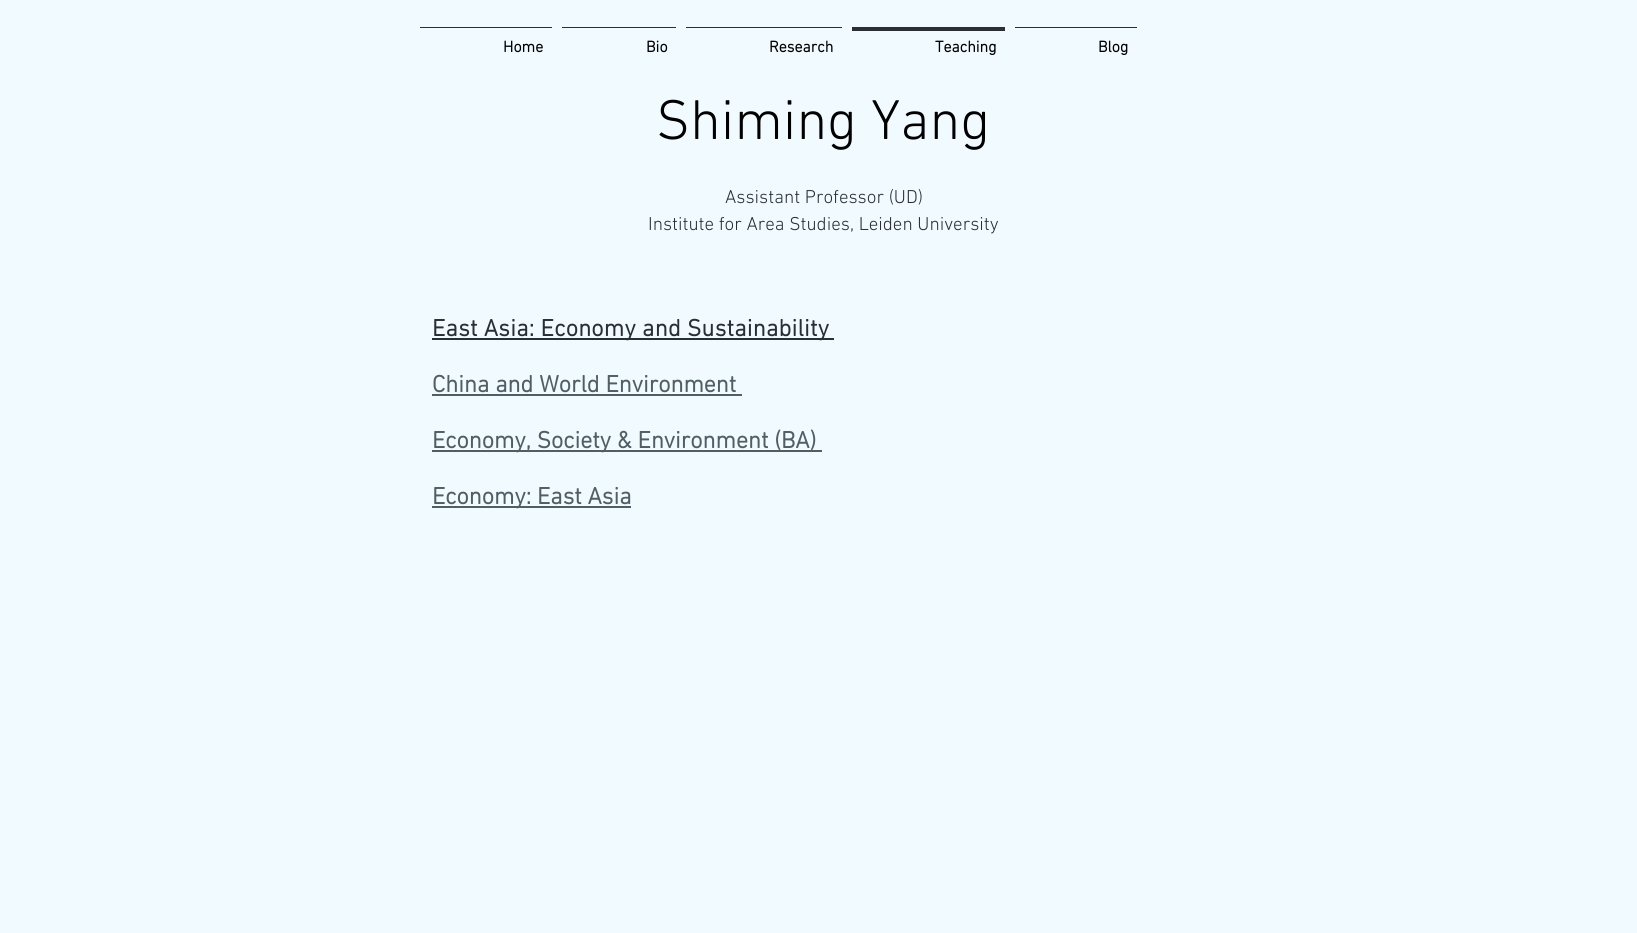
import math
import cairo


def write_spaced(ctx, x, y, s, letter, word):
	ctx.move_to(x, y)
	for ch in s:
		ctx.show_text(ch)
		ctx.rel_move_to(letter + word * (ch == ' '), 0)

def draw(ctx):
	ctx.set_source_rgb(0.941, 0.98, 1)
	ctx.paint()
	ctx.set_source_rgb(0.161, 0.184, 0.2)
	ctx.rectangle(420, 27, 132, 1)
	ctx.fill()
	ctx.select_font_face('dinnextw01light', cairo.FONT_SLANT_NORMAL, cairo.FONT_WEIGHT_BOLD)
	ctx.set_font_size(16)
	ctx.set_source_rgb(0, 0, 0)
	ctx.move_to(503, 52)
	ctx.show_text('Home')
	ctx.set_source_rgb(0.161, 0.184, 0.2)
	ctx.rectangle(562, 27, 114, 1)
	ctx.fill()
	ctx.set_source_rgb(0, 0, 0)
	ctx.move_to(646, 52)
	ctx.show_text('Bio')
	ctx.set_source_rgb(0.161, 0.184, 0.2)
	ctx.rectangle(686, 27, 156, 1)
	ctx.fill()
	ctx.set_source_rgb(0, 0, 0)
	ctx.move_to(769, 52)
	ctx.show_text('Research')
	ctx.set_source_rgb(0.161, 0.184, 0.2)
	ctx.rectangle(852, 27, 153, 4)
	ctx.fill()
	ctx.set_source_rgb(0, 0, 0)
	ctx.move_to(935, 52)
	ctx.show_text('Teaching')
	ctx.set_source_rgb(0.161, 0.184, 0.2)
	ctx.rectangle(1015, 27, 122, 1)
	ctx.fill()
	ctx.set_source_rgb(0, 0, 0)
	ctx.move_to(1098, 52)
	ctx.show_text('Blog')
	ctx.select_font_face('dinnextw01light Light')
	ctx.set_font_size(57)
	ctx.move_to(656, 139)
	ctx.show_text('Shiming Yang')
	ctx.set_font_size(19)
	ctx.set_source_rgb(0.161, 0.184, 0.2)
	ctx.move_to(725, 203)
	ctx.show_text('Assistant Professor (UD)')
	ctx.move_to(648, 230)
	ctx.show_text('Institute for Area Studies, Leiden University')
	ctx.rectangle(432, 338, 402, 2)
	ctx.fill()
	ctx.select_font_face('dinnextw01light', cairo.FONT_SLANT_NORMAL, cairo.FONT_WEIGHT_BOLD)
	ctx.set_font_size(24)
	write_spaced(ctx, 432, 336, 'East Asia: Economy and Sustainability', 0.25, 0)
	ctx.set_source_rgb(0.318, 0.369, 0.396)
	ctx.move_to(432, 392)
	ctx.show_text('China and World Environment')
	ctx.rectangle(432, 394, 310, 2)
	ctx.fill()
	ctx.rectangle(432, 450, 390, 2)
	ctx.fill()
	ctx.move_to(432, 448)
	ctx.show_text('Economy, Society & Environment (BA)')
	ctx.rectangle(432, 506, 199, 2)
	ctx.fill()
	ctx.move_to(432, 504)
	ctx.show_text('Economy: East Asia')


surface = cairo.ImageSurface(cairo.FORMAT_RGB24, 1637, 933)
ctx = cairo.Context(surface)
options = cairo.FontOptions()
options.set_hint_metrics(cairo.HINT_METRICS_OFF)
options.set_hint_style(cairo.HINT_STYLE_NONE)
ctx.set_font_options(options)
ctx.set_miter_limit(4)
draw(ctx)
surface.write_to_png('image.png')
